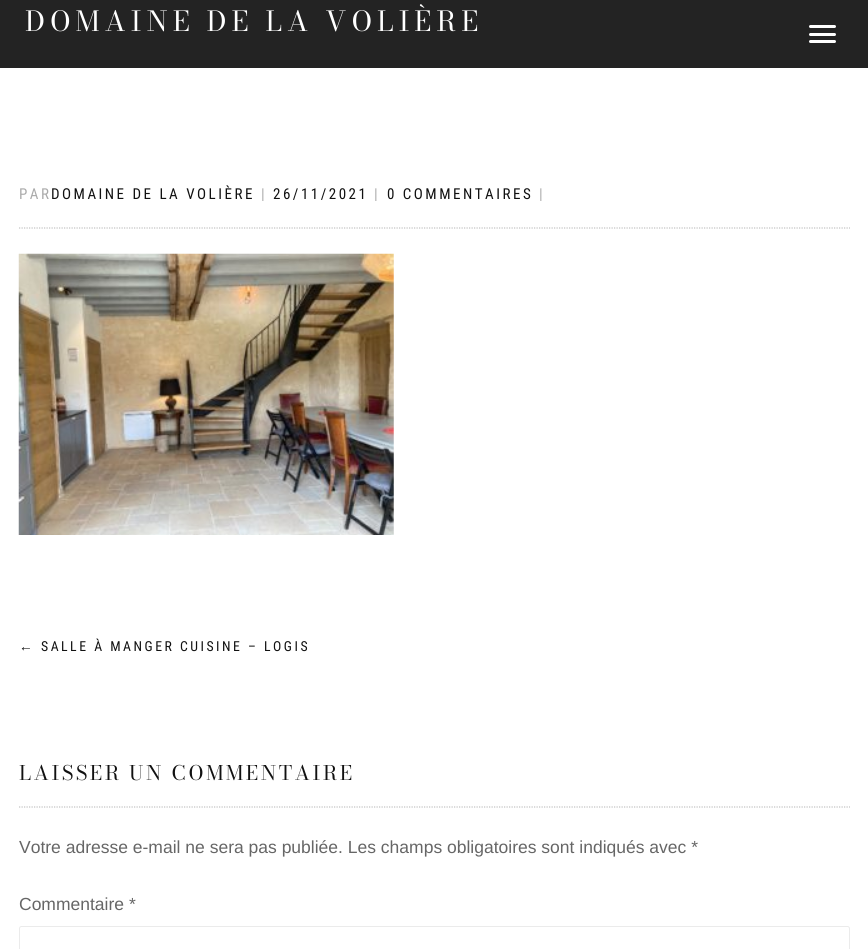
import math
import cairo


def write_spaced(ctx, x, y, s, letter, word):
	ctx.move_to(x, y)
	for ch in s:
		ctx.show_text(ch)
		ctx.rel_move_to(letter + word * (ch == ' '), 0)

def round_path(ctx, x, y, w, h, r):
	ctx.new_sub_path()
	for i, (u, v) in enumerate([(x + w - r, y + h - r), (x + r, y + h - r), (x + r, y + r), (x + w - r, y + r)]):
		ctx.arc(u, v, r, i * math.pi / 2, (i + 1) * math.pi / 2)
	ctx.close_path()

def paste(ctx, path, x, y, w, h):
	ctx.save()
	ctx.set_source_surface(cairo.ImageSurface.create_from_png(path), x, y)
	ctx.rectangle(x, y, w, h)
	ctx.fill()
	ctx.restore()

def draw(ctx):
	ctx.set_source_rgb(1, 1, 1)
	ctx.paint()
	ctx.set_source_rgb(0.137, 0.137, 0.137)
	ctx.rectangle(0, 0, 868, 68)
	ctx.fill()
	ctx.select_font_face('Bodoni Moda SC')
	ctx.set_font_size(27.5)
	ctx.set_source_rgb(1, 1, 1)
	write_spaced(ctx, 25, 31, 'DOMAINE DE LA VOLIÈRE', 5, 0)
	round_path(ctx, 809, 25, 27, 3, 1.5)
	ctx.fill()
	round_path(ctx, 809, 33, 27, 3, 1.5)
	ctx.fill()
	round_path(ctx, 809, 40, 27, 3, 1.5)
	ctx.fill()
	ctx.select_font_face('Roboto Condensed')
	ctx.set_font_size(15)
	ctx.set_source_rgb(0.667, 0.667, 0.667)
	write_spaced(ctx, 19, 199, 'PAR', 2.5, 0)
	ctx.set_source_rgb(0.067, 0.067, 0.067)
	write_spaced(ctx, 51, 199, 'DOMAINE DE LA VOLIÈRE', 2.5, 0)
	ctx.set_source_rgb(0.667, 0.667, 0.667)
	write_spaced(ctx, 261, 199, '|', 2.5, 0)
	ctx.set_source_rgb(0.067, 0.067, 0.067)
	write_spaced(ctx, 273, 199, '26/11/2021', 2.5, 0)
	ctx.set_source_rgb(0.667, 0.667, 0.667)
	write_spaced(ctx, 374, 199, '|', 2.5, 0)
	ctx.set_source_rgb(0.067, 0.067, 0.067)
	write_spaced(ctx, 387, 199, '0 COMMENTAIRES', 2.5, 0)
	ctx.set_source_rgb(0.667, 0.667, 0.667)
	write_spaced(ctx, 539, 199, '|', 2.5, 0)
	ctx.new_path()
	ctx.move_to(19, 228)
	ctx.line_to(850, 228)
	ctx.set_source_rgb(0.761, 0.761, 0.761)
	ctx.set_line_width(1.2)
	ctx.set_dash([1.25, 1.25])
	ctx.stroke()
	paste(ctx, 'media/1.png', 18, 253, 376, 282)
	ctx.select_font_face('Liberation Sans')
	ctx.set_font_size(13.75)
	ctx.set_source_rgb(0.067, 0.067, 0.067)
	write_spaced(ctx, 19, 651, '←', 2.5, 0)
	ctx.select_font_face('Roboto Condensed')
	write_spaced(ctx, 41, 651, 'SALLE À MANGER CUISINE – LOGIS', 2.5, 0)
	ctx.new_path()
	ctx.move_to(19, 807)
	ctx.line_to(850, 807)
	ctx.set_source_rgb(0.761, 0.761, 0.761)
	ctx.stroke()
	ctx.select_font_face('Bodoni Moda SC')
	ctx.set_font_size(20)
	ctx.set_source_rgb(0.067, 0.067, 0.067)
	write_spaced(ctx, 19, 780, 'LAISSER UN COMMENTAIRE', 2.5, 0)
	ctx.select_font_face('Liberation Sans')
	ctx.set_font_size(17.5)
	ctx.set_source_rgb(0.4, 0.4, 0.4)
	ctx.move_to(19, 853)
	ctx.show_text('Votre adresse e-mail ne sera pas publiée. Les champs obligatoires sont indiqués avec *')
	ctx.move_to(19, 910)
	ctx.show_text('Commentaire *')
	round_path(ctx, 19.5, 926.5, 830, 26, 2)
	ctx.set_source_rgb(0.918, 0.918, 0.918)
	ctx.set_line_width(1)
	ctx.set_dash([])
	ctx.stroke()


surface = cairo.ImageSurface(cairo.FORMAT_RGB24, 868, 949)
ctx = cairo.Context(surface)
options = cairo.FontOptions()
options.set_hint_metrics(cairo.HINT_METRICS_OFF)
options.set_hint_style(cairo.HINT_STYLE_NONE)
ctx.set_font_options(options)
ctx.set_miter_limit(4)
draw(ctx)
surface.write_to_png('image.png')
